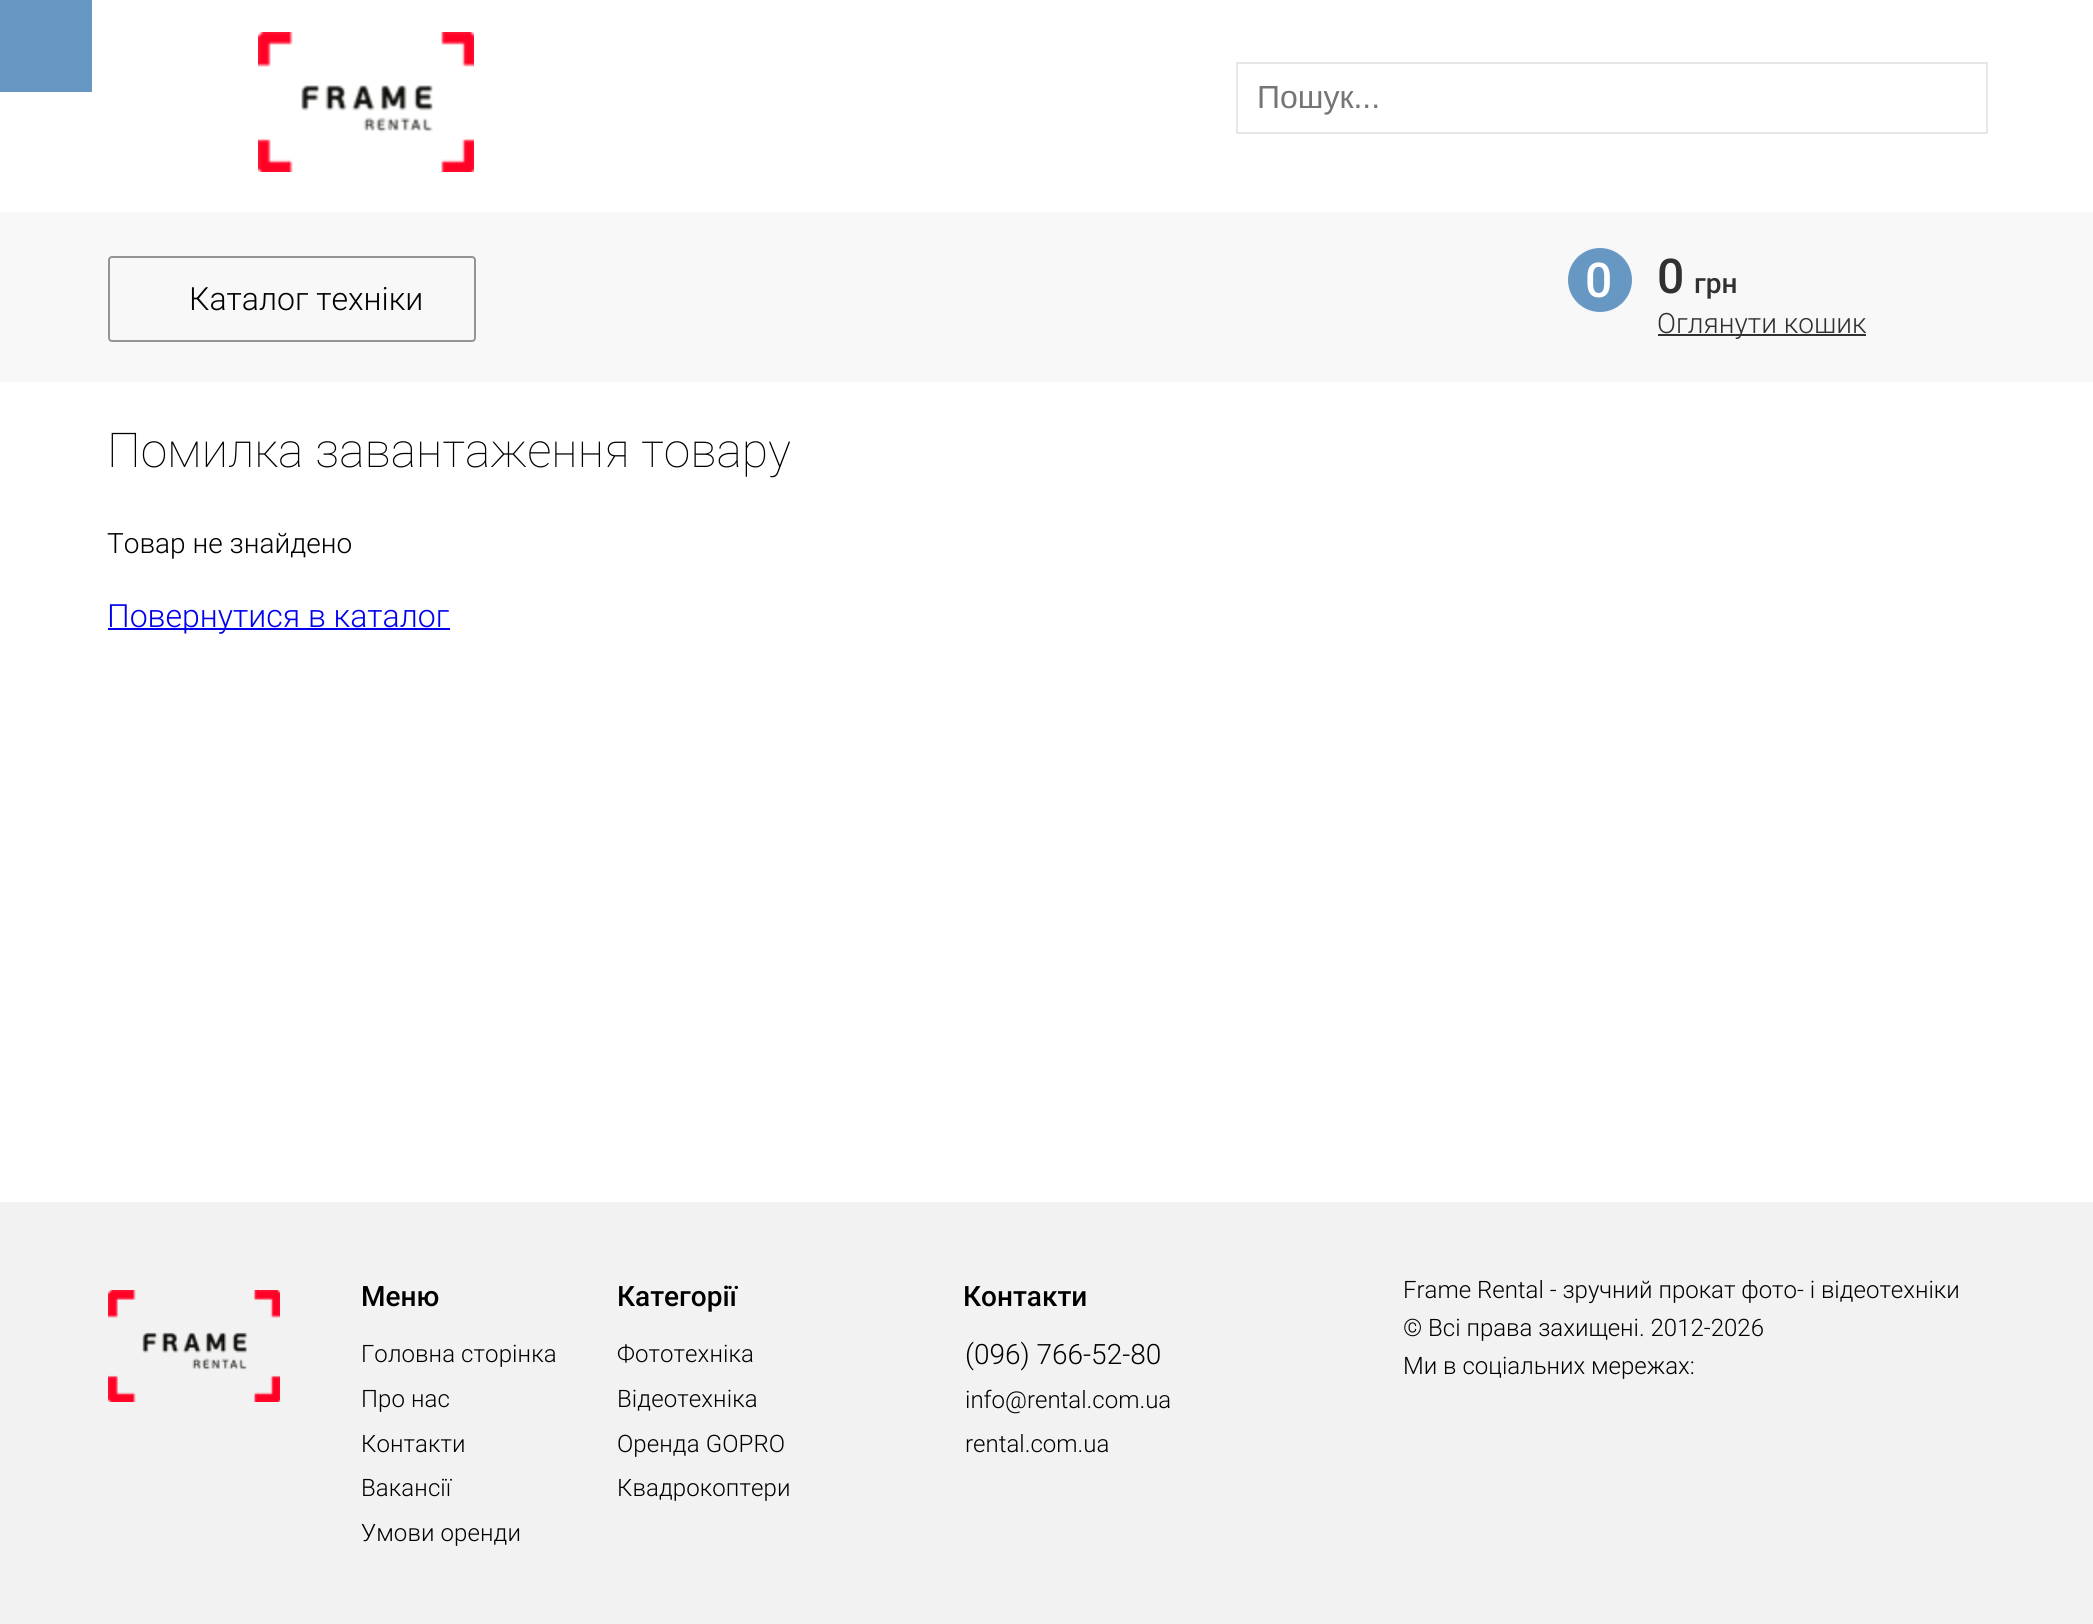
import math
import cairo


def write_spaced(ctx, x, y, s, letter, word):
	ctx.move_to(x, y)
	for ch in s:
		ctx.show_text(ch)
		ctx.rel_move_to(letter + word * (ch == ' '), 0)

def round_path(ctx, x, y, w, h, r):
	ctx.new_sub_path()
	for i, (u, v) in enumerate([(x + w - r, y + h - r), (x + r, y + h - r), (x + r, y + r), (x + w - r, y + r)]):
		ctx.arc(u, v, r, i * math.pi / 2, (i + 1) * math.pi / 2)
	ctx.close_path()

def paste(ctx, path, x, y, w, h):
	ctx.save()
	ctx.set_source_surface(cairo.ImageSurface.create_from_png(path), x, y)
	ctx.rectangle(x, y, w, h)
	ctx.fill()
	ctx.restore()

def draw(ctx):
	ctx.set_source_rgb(1, 1, 1)
	ctx.paint()
	ctx.set_source_rgb(0.404, 0.596, 0.769)
	ctx.rectangle(0, 0, 92, 92)
	ctx.fill()
	paste(ctx, 'media/1.png', 258, 32, 216, 140)
	ctx.rectangle(1237, 63, 750, 70)
	ctx.set_source_rgb(0.906, 0.906, 0.906)
	ctx.stroke()
	ctx.select_font_face('Liberation Sans')
	ctx.set_font_size(32)
	ctx.set_source_rgb(0.459, 0.459, 0.459)
	ctx.move_to(1257, 108)
	ctx.show_text('Пошук...')
	ctx.set_source_rgb(0.969, 0.969, 0.969)
	ctx.rectangle(0, 212, 2093, 170)
	ctx.fill()
	round_path(ctx, 109, 257, 366, 84, 3)
	ctx.set_source_rgb(0.58, 0.58, 0.58)
	ctx.stroke()
	ctx.select_font_face('Roboto Light')
	ctx.set_source_rgb(0, 0, 0)
	ctx.move_to(189, 310)
	ctx.show_text('Каталог техніки')
	ctx.set_source_rgb(0.404, 0.596, 0.769)
	ctx.new_path()
	ctx.arc(1600, 280, 32, 0, 2 * math.pi)
	ctx.fill()
	ctx.select_font_face('Roboto Medium')
	ctx.set_font_size(48)
	ctx.set_source_rgb(1, 1, 1)
	ctx.move_to(1585, 297)
	ctx.show_text('0')
	ctx.set_source_rgb(0.192, 0.192, 0.192)
	ctx.move_to(1657, 293)
	ctx.show_text('0')
	ctx.set_font_size(28)
	ctx.move_to(1694, 293)
	ctx.show_text('грн')
	ctx.rectangle(1658, 334, 208, 2)
	ctx.fill()
	ctx.select_font_face('Roboto Light')
	ctx.move_to(1657, 333)
	ctx.show_text('Оглянути кошик')
	ctx.select_font_face('Roboto Thin')
	ctx.set_font_size(48)
	ctx.set_source_rgb(0, 0, 0)
	ctx.move_to(107, 467)
	ctx.show_text('Помилка завантаження товару')
	ctx.select_font_face('Roboto Light')
	ctx.set_font_size(28)
	ctx.move_to(107, 553)
	ctx.show_text('Товар не знайдено')
	ctx.set_source_rgb(0, 0, 0.933)
	ctx.rectangle(108, 628, 342, 2)
	ctx.fill()
	ctx.set_font_size(32)
	ctx.move_to(107, 627)
	ctx.show_text('Повернутися в каталог')
	ctx.set_source_rgb(0.949, 0.949, 0.949)
	ctx.rectangle(0, 1202, 2093, 422)
	ctx.fill()
	paste(ctx, 'media/2.png', 108, 1290, 172, 112)
	ctx.select_font_face('Roboto Medium')
	ctx.set_font_size(28)
	ctx.set_source_rgb(0, 0, 0)
	ctx.move_to(361, 1306)
	ctx.show_text('Меню')
	ctx.select_font_face('Roboto Light')
	ctx.set_font_size(24)
	for x, y, s in [
		(361, 1362, 'Головна сторінка'),
		(361, 1407, 'Про нас'),
		(361, 1452, 'Контакти'),
		(361, 1496, 'Вакансії'),
		(361, 1541, 'Умови оренди'),
	]:
		write_spaced(ctx, x, y, s, 0.1, 0)
	ctx.select_font_face('Roboto Medium')
	ctx.set_font_size(28)
	ctx.move_to(617, 1306)
	ctx.show_text('Категорії')
	ctx.select_font_face('Roboto Light')
	ctx.set_font_size(24)
	for x, y, s in [
		(617, 1362, 'Фототехніка'),
		(617, 1407, 'Відеотехніка'),
		(617, 1452, 'Оренда GOPRO'),
		(617, 1496, 'Квадрокоптери'),
	]:
		write_spaced(ctx, x, y, s, 0.1, 0)
	ctx.select_font_face('Roboto Medium')
	ctx.set_font_size(28)
	ctx.move_to(963, 1306)
	ctx.show_text('Контакти')
	ctx.select_font_face('Roboto Light')
	ctx.move_to(965, 1364)
	ctx.show_text('(096) 766-52-80')
	ctx.set_font_size(24)
	for x, y, s in [
		(965, 1408, 'info@rental.com.ua'),
		(965, 1452, 'rental.com.ua'),
		(1403, 1298, 'Frame Rental - зручний прокат фото- і відеотехніки'),
		(1403, 1336, '© Всі права захищені. 2012-2026'),
		(1403, 1374, 'Ми в соціальних мережах:'),
	]:
		ctx.move_to(x, y)
		ctx.show_text(s)


surface = cairo.ImageSurface(cairo.FORMAT_RGB24, 2093, 1624)
ctx = cairo.Context(surface)
options = cairo.FontOptions()
options.set_hint_metrics(cairo.HINT_METRICS_OFF)
options.set_hint_style(cairo.HINT_STYLE_NONE)
ctx.set_font_options(options)
ctx.set_miter_limit(4)
draw(ctx)
surface.write_to_png('image.png')
